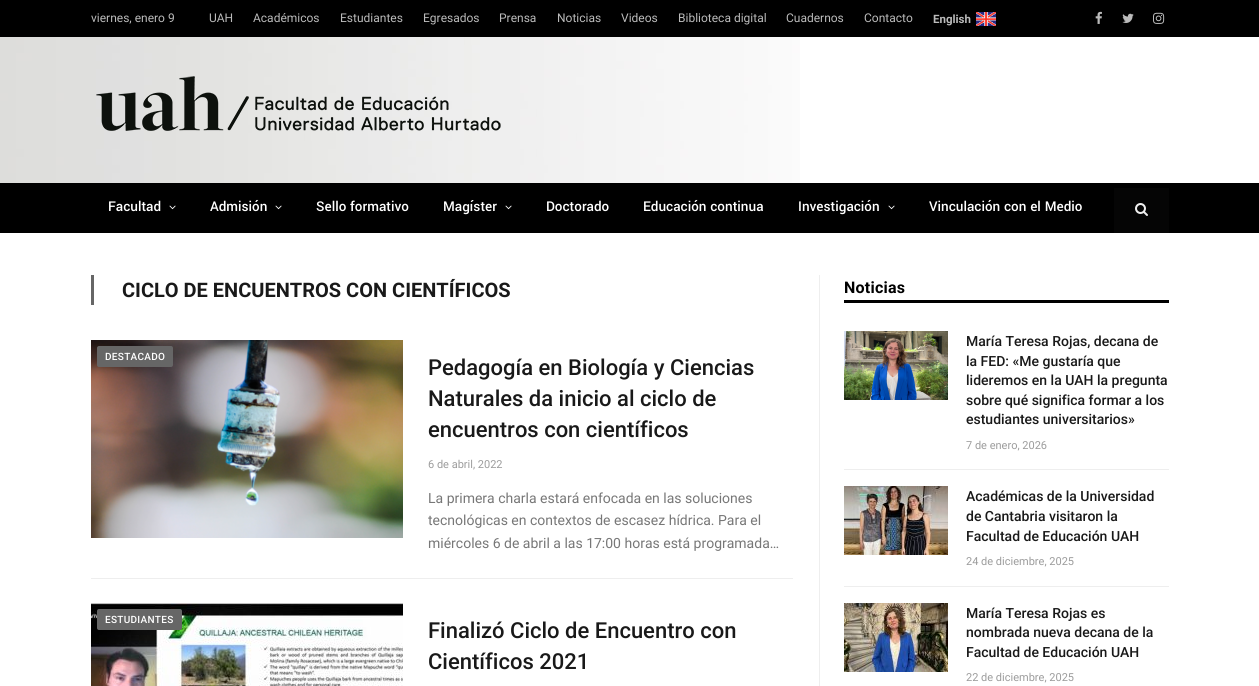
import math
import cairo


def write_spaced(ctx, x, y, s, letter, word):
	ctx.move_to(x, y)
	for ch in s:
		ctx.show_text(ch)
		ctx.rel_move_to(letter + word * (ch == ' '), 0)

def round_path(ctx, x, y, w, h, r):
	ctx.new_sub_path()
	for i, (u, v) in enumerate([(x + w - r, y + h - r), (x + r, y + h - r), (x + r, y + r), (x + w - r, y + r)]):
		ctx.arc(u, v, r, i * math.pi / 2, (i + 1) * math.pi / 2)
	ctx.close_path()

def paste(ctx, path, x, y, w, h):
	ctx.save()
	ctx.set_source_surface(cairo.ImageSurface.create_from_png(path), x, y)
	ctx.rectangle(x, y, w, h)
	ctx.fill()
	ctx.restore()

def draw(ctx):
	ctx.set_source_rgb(1, 1, 1)
	ctx.paint()
	ctx.set_source_rgb(0, 0, 0)
	ctx.rectangle(0, 0, 1259, 37)
	ctx.fill()
	ctx.select_font_face('Roboto')
	ctx.set_font_size(12)
	ctx.set_source_rgb(0.733, 0.733, 0.733)
	for x, y, s in [
		(91, 22, 'viernes, enero 9'),
		(209, 22, 'UAH'),
		(253, 22, 'Académicos'),
		(340, 22, 'Estudiantes'),
		(423, 22, 'Egresados'),
		(499, 22, 'Prensa'),
		(557, 22, 'Noticias'),
		(621, 22, 'Videos'),
		(678, 22, 'Biblioteca digital'),
		(786, 22, 'Cuadernos'),
		(864, 22, 'Contacto'),
	]:
		ctx.move_to(x, y)
		ctx.show_text(s)
	ctx.select_font_face('Roboto', cairo.FONT_SLANT_NORMAL, cairo.FONT_WEIGHT_BOLD)
	ctx.set_font_size(11.5)
	ctx.move_to(933, 23)
	ctx.show_text('English')
	paste(ctx, 'media/1.png', 976, 12, 20, 14)
	paste(ctx, 'media/2.png', 1095, 11, 7, 13)
	paste(ctx, 'media/3.png', 1122, 13, 12, 10)
	paste(ctx, 'media/4.png', 1153, 12, 12, 12)
	paste(ctx, 'media/5.png', 0, 37, 800, 146)
	paste(ctx, 'media/6.png', 96, 76, 405, 55)
	ctx.set_source_rgb(0, 0, 0)
	ctx.rectangle(0, 183, 1259, 50)
	ctx.fill()
	ctx.select_font_face('Yantramanav Medium')
	ctx.set_font_size(15)
	ctx.set_source_rgb(1, 1, 1)
	ctx.move_to(108, 211)
	ctx.show_text('Facultad')
	paste(ctx, 'media/7.png', 169, 205, 7, 5)
	ctx.move_to(210, 211)
	ctx.show_text('Admisión')
	paste(ctx, 'media/7.png', 275, 205, 7, 5)
	ctx.move_to(316, 211)
	ctx.show_text('Sello formativo')
	ctx.move_to(443, 211)
	ctx.show_text('Magíster')
	paste(ctx, 'media/7.png', 505, 205, 7, 5)
	for x, y, s in [
		(546, 211, 'Doctorado'),
		(643, 211, 'Educación continua'),
		(798, 211, 'Investigación'),
	]:
		ctx.move_to(x, y)
		ctx.show_text(s)
	paste(ctx, 'media/7.png', 888, 205, 7, 5)
	ctx.move_to(929, 211)
	ctx.show_text('Vinculación con el Medio')
	ctx.set_source_rgb(0.02, 0.02, 0.02)
	ctx.rectangle(1114, 188, 55, 45)
	ctx.fill()
	paste(ctx, 'media/8.png', 1135, 203, 13, 13)
	ctx.set_source_rgb(0.4, 0.4, 0.4)
	ctx.rectangle(91, 275, 3, 30)
	ctx.fill()
	ctx.select_font_face('Roboto', cairo.FONT_SLANT_NORMAL, cairo.FONT_WEIGHT_BOLD)
	ctx.set_font_size(20)
	ctx.set_source_rgb(0.098, 0.098, 0.098)
	ctx.move_to(122, 297)
	ctx.show_text('CICLO DE ENCUENTROS CON CIENTÍFICOS')
	paste(ctx, 'media/9.png', 91, 340, 312, 198)
	ctx.set_source_rgb(0.4, 0.4, 0.4)
	round_path(ctx, 97, 346, 76, 21, 2)
	ctx.fill()
	ctx.select_font_face('Roboto Medium')
	ctx.set_font_size(10)
	ctx.set_source_rgb(1, 1, 1)
	write_spaced(ctx, 105, 360, 'DESTACADO', 0.3, 0)
	ctx.set_font_size(22)
	ctx.set_source_rgb(0.098, 0.098, 0.098)
	for x, y, s in [
		(428, 375, 'Pedagogía en Biología y Ciencias'),
		(428, 406, 'Naturales da inicio al ciclo de'),
		(428, 437, 'encuentros con científicos'),
	]:
		ctx.move_to(x, y)
		ctx.show_text(s)
	ctx.select_font_face('Roboto')
	ctx.set_font_size(11)
	ctx.set_source_rgb(0.612, 0.612, 0.612)
	ctx.move_to(428, 468)
	ctx.show_text('6 de abril, 2022')
	ctx.set_font_size(14)
	ctx.set_source_rgb(0.467, 0.467, 0.467)
	for x, y, s in [
		(428, 503, 'La primera charla estará enfocada en las soluciones'),
		(428, 525, 'tecnológicas en contextos de escasez hídrica. Para el'),
		(428, 548, 'miércoles 6 de abril a las 17:00 horas está programada…'),
	]:
		ctx.move_to(x, y)
		ctx.show_text(s)
	ctx.set_source_rgb(0.933, 0.933, 0.933)
	ctx.rectangle(91, 578, 702, 1)
	ctx.fill()
	paste(ctx, 'media/10.png', 91, 603, 312, 83)
	ctx.set_source_rgb(0.4, 0.4, 0.4)
	round_path(ctx, 97, 609, 85, 21, 2)
	ctx.fill()
	ctx.select_font_face('Roboto Medium')
	ctx.set_font_size(10)
	ctx.set_source_rgb(1, 1, 1)
	write_spaced(ctx, 105, 623, 'ESTUDIANTES', 0.3, 0)
	ctx.set_font_size(22)
	ctx.set_source_rgb(0.098, 0.098, 0.098)
	ctx.move_to(428, 638)
	ctx.show_text('Finalizó Ciclo de Encuentro con')
	ctx.move_to(428, 669)
	ctx.show_text('Científicos 2021')
	ctx.set_source_rgb(0.933, 0.933, 0.933)
	ctx.rectangle(819, 275, 1, 411)
	ctx.fill()
	ctx.set_source_rgb(0, 0, 0)
	ctx.rectangle(844, 300, 325, 3)
	ctx.fill()
	ctx.select_font_face('Roboto', cairo.FONT_SLANT_NORMAL, cairo.FONT_WEIGHT_BOLD)
	ctx.set_font_size(16)
	write_spaced(ctx, 844, 293, 'Noticias', 0.25, 0)
	ctx.set_source_rgb(0.933, 0.933, 0.933)
	ctx.rectangle(844, 469, 325, 1)
	ctx.fill()
	paste(ctx, 'media/11.png', 844, 331, 104, 69)
	ctx.select_font_face('Roboto Medium')
	ctx.set_font_size(14)
	ctx.set_source_rgb(0.098, 0.098, 0.098)
	for x, y, s in [
		(966, 346, 'María Teresa Rojas, decana de'),
		(966, 366, 'la FED: «Me gustaría que'),
		(966, 385, 'lideremos en la UAH la pregunta'),
		(966, 405, 'sobre qué significa formar a los'),
		(966, 424, 'estudiantes universitarios»'),
	]:
		ctx.move_to(x, y)
		ctx.show_text(s)
	ctx.select_font_face('Roboto')
	ctx.set_font_size(11)
	ctx.set_source_rgb(0.612, 0.612, 0.612)
	ctx.move_to(966, 449)
	ctx.show_text('7 de enero, 2026')
	ctx.set_source_rgb(0.933, 0.933, 0.933)
	ctx.rectangle(844, 586, 325, 1)
	ctx.fill()
	paste(ctx, 'media/12.png', 844, 486, 104, 69)
	ctx.select_font_face('Roboto Medium')
	ctx.set_font_size(14)
	ctx.set_source_rgb(0.098, 0.098, 0.098)
	for x, y, s in [
		(966, 501, 'Académicas de la Universidad'),
		(966, 521, 'de Cantabria visitaron la'),
		(966, 541, 'Facultad de Educación UAH'),
	]:
		ctx.move_to(x, y)
		ctx.show_text(s)
	ctx.select_font_face('Roboto')
	ctx.set_font_size(11)
	ctx.set_source_rgb(0.612, 0.612, 0.612)
	ctx.move_to(966, 565)
	ctx.show_text('24 de diciembre, 2025')
	paste(ctx, 'media/13.png', 844, 603, 104, 69)
	ctx.select_font_face('Roboto Medium')
	ctx.set_font_size(14)
	ctx.set_source_rgb(0.098, 0.098, 0.098)
	for x, y, s in [
		(966, 618, 'María Teresa Rojas es'),
		(966, 637, 'nombrada nueva decana de la'),
		(966, 657, 'Facultad de Educación UAH'),
	]:
		ctx.move_to(x, y)
		ctx.show_text(s)
	ctx.select_font_face('Roboto')
	ctx.set_font_size(11)
	ctx.set_source_rgb(0.612, 0.612, 0.612)
	ctx.move_to(966, 681)
	ctx.show_text('22 de diciembre, 2025')


surface = cairo.ImageSurface(cairo.FORMAT_RGB24, 1259, 686)
ctx = cairo.Context(surface)
options = cairo.FontOptions()
options.set_hint_metrics(cairo.HINT_METRICS_OFF)
options.set_hint_style(cairo.HINT_STYLE_NONE)
ctx.set_font_options(options)
ctx.set_miter_limit(4)
draw(ctx)
surface.write_to_png('image.png')
